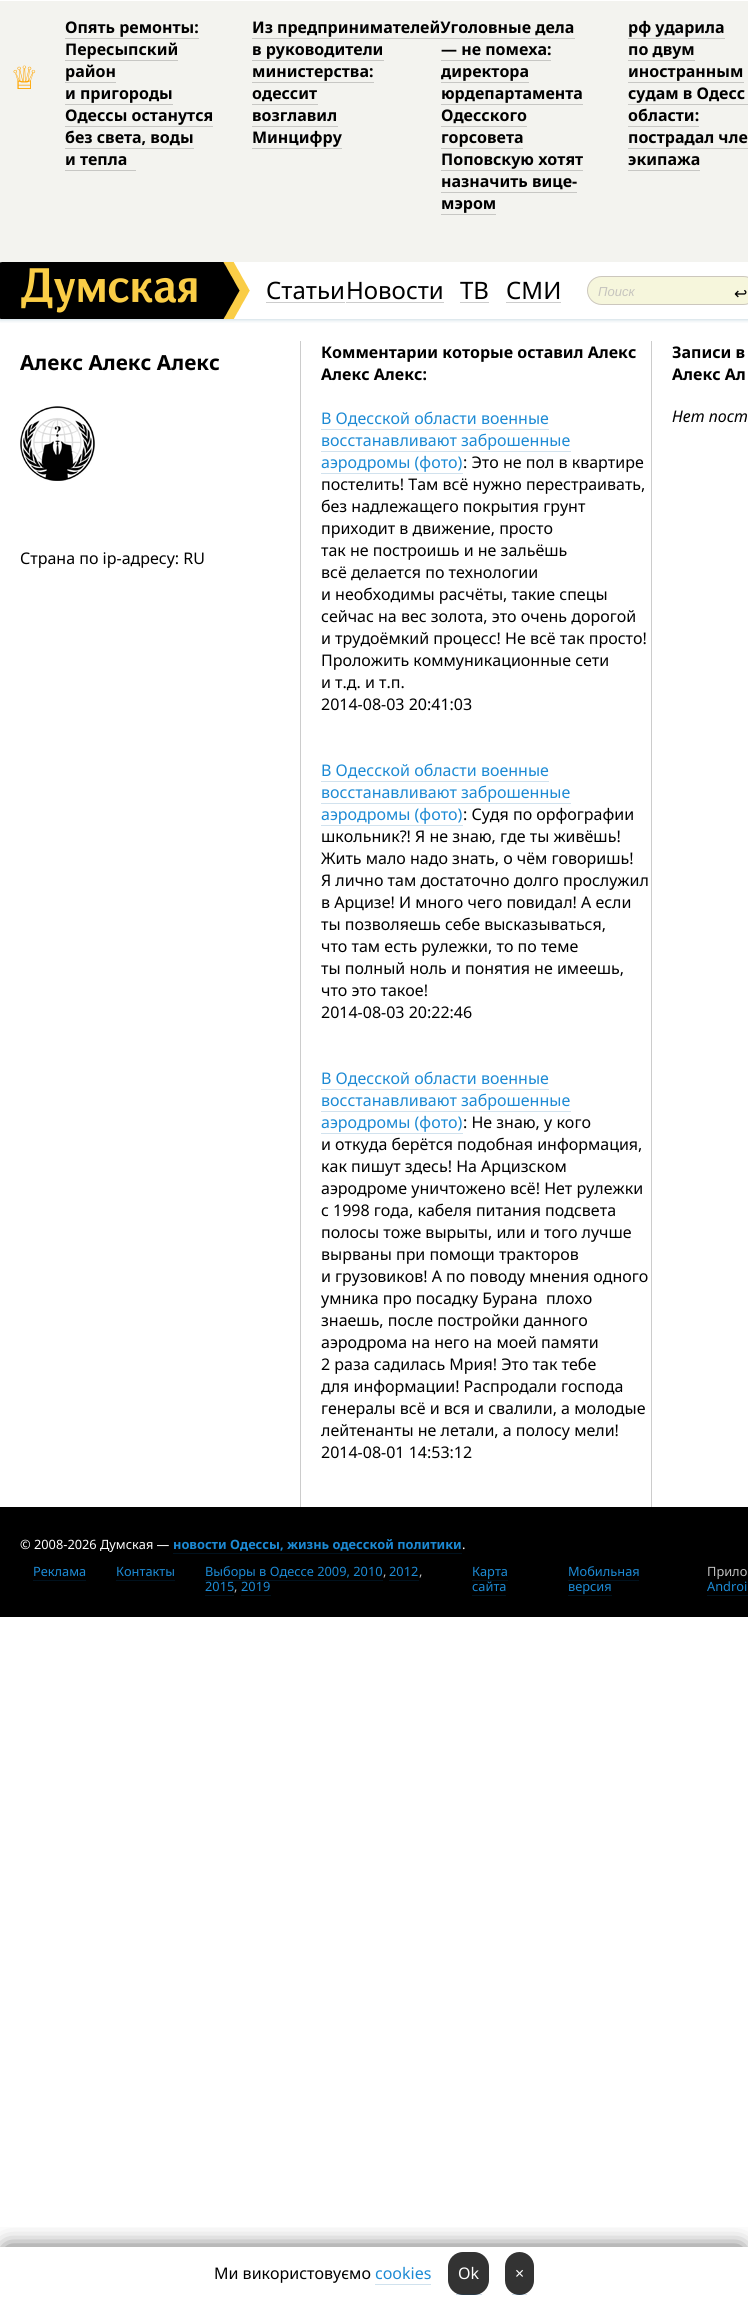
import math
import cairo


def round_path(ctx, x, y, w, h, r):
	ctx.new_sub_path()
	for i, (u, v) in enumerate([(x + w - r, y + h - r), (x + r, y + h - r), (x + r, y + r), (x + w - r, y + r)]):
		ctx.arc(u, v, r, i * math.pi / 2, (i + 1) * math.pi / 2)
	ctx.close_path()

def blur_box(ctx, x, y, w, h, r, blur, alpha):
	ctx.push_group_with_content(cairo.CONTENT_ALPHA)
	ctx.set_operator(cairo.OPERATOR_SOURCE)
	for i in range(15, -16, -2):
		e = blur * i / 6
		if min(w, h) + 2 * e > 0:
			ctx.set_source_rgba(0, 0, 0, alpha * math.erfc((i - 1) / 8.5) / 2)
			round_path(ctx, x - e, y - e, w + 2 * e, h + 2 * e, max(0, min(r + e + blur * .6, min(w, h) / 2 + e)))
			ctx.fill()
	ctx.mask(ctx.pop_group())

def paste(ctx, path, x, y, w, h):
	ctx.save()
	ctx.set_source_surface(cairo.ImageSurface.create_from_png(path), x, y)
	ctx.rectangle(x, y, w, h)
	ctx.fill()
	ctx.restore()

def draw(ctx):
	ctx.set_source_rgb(1, 1, 1)
	ctx.paint()
	ctx.save()
	ctx.rectangle(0, 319, 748, 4)
	ctx.clip()
	ctx.set_source_rgb(0, 0.31, 0.478)
	blur_box(ctx, 0, 262, 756, 57, 0, 2.5, 0.3)
	ctx.restore()
	ctx.set_source_rgb(0.953, 0.953, 0.937)
	ctx.rectangle(0, 1, 748, 261)
	ctx.fill()
	ctx.select_font_face('Noto Sans', cairo.FONT_SLANT_NORMAL, cairo.FONT_WEIGHT_BOLD)
	ctx.set_font_size(16)
	ctx.set_source_rgb(0, 0, 0)
	ctx.move_to(65, 33)
	ctx.show_text('Опять ремонты:')
	ctx.set_source_rgb(0.78, 0.78, 0.769)
	ctx.rectangle(65, 38, 134, 1)
	ctx.fill()
	ctx.set_source_rgb(0, 0, 0)
	ctx.move_to(65, 55)
	ctx.show_text('Пересыпский')
	ctx.set_source_rgb(0.78, 0.78, 0.769)
	ctx.rectangle(65, 60, 113, 1)
	ctx.fill()
	ctx.set_source_rgb(0, 0, 0)
	ctx.move_to(65, 77)
	ctx.show_text('район')
	ctx.set_source_rgb(0.78, 0.78, 0.769)
	ctx.rectangle(65, 82, 51, 1)
	ctx.fill()
	ctx.set_source_rgb(0, 0, 0)
	ctx.move_to(65, 99)
	ctx.show_text('и пригороды')
	ctx.set_source_rgb(0.78, 0.78, 0.769)
	ctx.rectangle(65, 104, 108, 1)
	ctx.fill()
	ctx.set_source_rgb(0, 0, 0)
	ctx.move_to(65, 121)
	ctx.show_text('Одессы останутся')
	ctx.set_source_rgb(0.78, 0.78, 0.769)
	ctx.rectangle(65, 126, 148, 1)
	ctx.fill()
	ctx.set_source_rgb(0, 0, 0)
	ctx.move_to(65, 143)
	ctx.show_text('без света, воды')
	ctx.set_source_rgb(0.78, 0.78, 0.769)
	ctx.rectangle(65, 148, 129, 1)
	ctx.fill()
	ctx.set_source_rgb(0, 0, 0)
	ctx.move_to(65, 165)
	ctx.show_text('и тепла')
	ctx.set_source_rgb(0.78, 0.78, 0.769)
	ctx.rectangle(65, 170, 71, 1)
	ctx.fill()
	ctx.set_source_rgb(0, 0, 0)
	ctx.move_to(252, 33)
	ctx.show_text('Из предпринимателейУголовные дела')
	ctx.set_source_rgb(0.78, 0.78, 0.769)
	ctx.rectangle(252, 38, 323, 1)
	ctx.fill()
	ctx.set_source_rgb(0, 0, 0)
	ctx.move_to(252, 55)
	ctx.show_text('в руководители')
	ctx.set_source_rgb(0.78, 0.78, 0.769)
	ctx.rectangle(252, 60, 132, 1)
	ctx.fill()
	ctx.set_source_rgb(0, 0, 0)
	ctx.move_to(252, 77)
	ctx.show_text('министерства:')
	ctx.set_source_rgb(0.78, 0.78, 0.769)
	ctx.rectangle(252, 82, 122, 1)
	ctx.fill()
	ctx.set_source_rgb(0, 0, 0)
	ctx.move_to(252, 99)
	ctx.show_text('одессит')
	ctx.set_source_rgb(0.78, 0.78, 0.769)
	ctx.rectangle(252, 104, 66, 1)
	ctx.fill()
	ctx.set_source_rgb(0, 0, 0)
	ctx.move_to(252, 121)
	ctx.show_text('возглавил')
	ctx.set_source_rgb(0.78, 0.78, 0.769)
	ctx.rectangle(252, 126, 86, 1)
	ctx.fill()
	ctx.set_source_rgb(0, 0, 0)
	ctx.move_to(252, 143)
	ctx.show_text('Минцифру')
	ctx.set_source_rgb(0.78, 0.78, 0.769)
	ctx.rectangle(252, 148, 90, 1)
	ctx.fill()
	ctx.set_source_rgb(0, 0, 0)
	ctx.move_to(628, 33)
	ctx.show_text('рф ударила')
	ctx.set_source_rgb(0.78, 0.78, 0.769)
	ctx.rectangle(628, 38, 97, 1)
	ctx.fill()
	ctx.set_source_rgb(0, 0, 0)
	ctx.move_to(628, 55)
	ctx.show_text('по двум')
	ctx.set_source_rgb(0.78, 0.78, 0.769)
	ctx.rectangle(628, 60, 67, 1)
	ctx.fill()
	ctx.set_source_rgb(0, 0, 0)
	ctx.move_to(628, 77)
	ctx.show_text('иностранным')
	ctx.set_source_rgb(0.78, 0.78, 0.769)
	ctx.rectangle(628, 82, 116, 1)
	ctx.fill()
	ctx.set_source_rgb(0, 0, 0)
	ctx.move_to(628, 99)
	ctx.show_text('судам в Одесс')
	ctx.set_source_rgb(0.78, 0.78, 0.769)
	ctx.rectangle(628, 104, 120, 1)
	ctx.fill()
	ctx.set_source_rgb(0, 0, 0)
	ctx.move_to(628, 121)
	ctx.show_text('области:')
	ctx.set_source_rgb(0.78, 0.78, 0.769)
	ctx.rectangle(628, 126, 71, 1)
	ctx.fill()
	ctx.set_source_rgb(0, 0, 0)
	ctx.move_to(628, 143)
	ctx.show_text('пострадал чле')
	ctx.set_source_rgb(0.78, 0.78, 0.769)
	ctx.rectangle(628, 148, 120, 1)
	ctx.fill()
	ctx.set_source_rgb(0, 0, 0)
	ctx.move_to(628, 165)
	ctx.show_text('экипажа')
	ctx.set_source_rgb(0.78, 0.78, 0.769)
	ctx.rectangle(628, 170, 72, 1)
	ctx.fill()
	ctx.select_font_face('DejaVu Sans')
	ctx.set_font_size(32)
	ctx.set_source_rgb(1, 0.647, 0)
	ctx.move_to(10, 89)
	ctx.show_text('♕')
	ctx.select_font_face('Noto Sans', cairo.FONT_SLANT_NORMAL, cairo.FONT_WEIGHT_BOLD)
	ctx.set_font_size(16)
	ctx.set_source_rgb(0, 0, 0)
	ctx.move_to(441, 55)
	ctx.show_text('— не помеха:')
	ctx.set_source_rgb(0.78, 0.78, 0.769)
	ctx.rectangle(441, 60, 110, 1)
	ctx.fill()
	ctx.set_source_rgb(0, 0, 0)
	ctx.move_to(441, 77)
	ctx.show_text('директора')
	ctx.set_source_rgb(0.78, 0.78, 0.769)
	ctx.rectangle(441, 82, 88, 1)
	ctx.fill()
	ctx.set_source_rgb(0, 0, 0)
	ctx.move_to(441, 99)
	ctx.show_text('юрдепартамента')
	ctx.set_source_rgb(0.78, 0.78, 0.769)
	ctx.rectangle(441, 104, 142, 1)
	ctx.fill()
	ctx.set_source_rgb(0, 0, 0)
	ctx.move_to(441, 121)
	ctx.show_text('Одесского')
	ctx.set_source_rgb(0.78, 0.78, 0.769)
	ctx.rectangle(441, 126, 86, 1)
	ctx.fill()
	ctx.set_source_rgb(0, 0, 0)
	ctx.move_to(441, 143)
	ctx.show_text('горсовета')
	ctx.set_source_rgb(0.78, 0.78, 0.769)
	ctx.rectangle(441, 148, 82, 1)
	ctx.fill()
	ctx.set_source_rgb(0, 0, 0)
	ctx.move_to(441, 165)
	ctx.show_text('Поповскую хотят')
	ctx.set_source_rgb(0.78, 0.78, 0.769)
	ctx.rectangle(441, 170, 142, 1)
	ctx.fill()
	ctx.set_source_rgb(0, 0, 0)
	ctx.move_to(441, 187)
	ctx.show_text('назначить вице-')
	ctx.set_source_rgb(0.78, 0.78, 0.769)
	ctx.rectangle(441, 192, 136, 1)
	ctx.fill()
	ctx.set_source_rgb(0, 0, 0)
	ctx.move_to(441, 209)
	ctx.show_text('мэром')
	ctx.set_source_rgb(0.78, 0.78, 0.769)
	ctx.rectangle(441, 214, 55, 1)
	ctx.fill()
	paste(ctx, 'media/1.png', 0, 262, 250, 57)
	ctx.set_source_rgb(0.8, 0.8, 0.8)
	ctx.rectangle(266, 302, 79, 1)
	ctx.fill()
	ctx.select_font_face('Noto Sans')
	ctx.set_font_size(24)
	ctx.set_source_rgb(0, 0, 0)
	ctx.move_to(266, 299)
	ctx.show_text('Статьи')
	ctx.set_source_rgb(0.8, 0.8, 0.8)
	ctx.rectangle(346, 302, 98, 1)
	ctx.fill()
	ctx.set_source_rgb(0, 0, 0)
	ctx.move_to(346, 299)
	ctx.show_text('Новости')
	ctx.set_source_rgb(0.8, 0.8, 0.8)
	ctx.rectangle(460, 302, 29, 1)
	ctx.fill()
	ctx.set_source_rgb(0, 0, 0)
	ctx.move_to(460, 299)
	ctx.show_text('ТВ')
	ctx.set_source_rgb(0.8, 0.8, 0.8)
	ctx.rectangle(506, 302, 55, 1)
	ctx.fill()
	ctx.set_source_rgb(0, 0, 0)
	ctx.move_to(506, 299)
	ctx.show_text('СМИ')
	ctx.set_source_rgb(0.961, 0.961, 0.863)
	round_path(ctx, 587.5, 276.5, 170, 28, 14)
	ctx.fill_preserve()
	ctx.set_source_rgb(0.8, 0.78, 0.741)
	ctx.set_line_width(1)
	ctx.stroke()
	ctx.select_font_face('Liberation Sans', cairo.FONT_SLANT_ITALIC)
	ctx.set_font_size(13)
	ctx.set_source_rgb(0.776, 0.769, 0.745)
	ctx.move_to(598, 296)
	ctx.show_text('Поиск')
	ctx.select_font_face('DejaVu Sans')
	ctx.set_font_size(16)
	ctx.set_source_rgb(0, 0, 0)
	ctx.move_to(734, 299)
	ctx.show_text('↩')
	ctx.set_source_rgb(0.8, 0.8, 0.8)
	ctx.rectangle(300, 341, 1, 1167)
	ctx.fill()
	ctx.select_font_face('Noto Sans', cairo.FONT_SLANT_NORMAL, cairo.FONT_WEIGHT_BOLD)
	ctx.set_font_size(20.75)
	ctx.set_source_rgb(0, 0, 0)
	ctx.move_to(20, 370)
	ctx.show_text('Алекс Алекс Алекс')
	paste(ctx, 'media/2.png', 20, 406, 75, 75)
	ctx.select_font_face('Noto Sans')
	ctx.set_font_size(16)
	ctx.move_to(20, 564)
	ctx.show_text('Страна по ip-адресу: RU')
	ctx.set_source_rgb(0.8, 0.8, 0.8)
	ctx.rectangle(651, 341, 1, 1167)
	ctx.fill()
	ctx.select_font_face('Noto Sans', cairo.FONT_SLANT_NORMAL, cairo.FONT_WEIGHT_BOLD)
	ctx.set_source_rgb(0, 0, 0)
	ctx.move_to(321, 358)
	ctx.show_text('Комментарии которые оставил Алекс')
	ctx.move_to(321, 380)
	ctx.show_text('Алекс Алекс:')
	ctx.select_font_face('Noto Sans')
	ctx.set_source_rgb(0.11, 0.541, 0.831)
	ctx.move_to(321, 424)
	ctx.show_text('В Одесской области военные')
	ctx.set_source_rgb(0.82, 0.886, 0.933)
	ctx.rectangle(321, 429, 228, 1)
	ctx.fill()
	ctx.set_source_rgb(0.11, 0.541, 0.831)
	ctx.move_to(321, 446)
	ctx.show_text('восстанавливают заброшенные')
	ctx.set_source_rgb(0.82, 0.886, 0.933)
	ctx.rectangle(321, 451, 250, 1)
	ctx.fill()
	ctx.set_source_rgb(0.11, 0.541, 0.831)
	ctx.move_to(321, 468)
	ctx.show_text('аэродромы (фото)')
	ctx.set_source_rgb(0.82, 0.886, 0.933)
	ctx.rectangle(321, 473, 142, 1)
	ctx.fill()
	ctx.set_source_rgb(0, 0, 0)
	for x, y, s in [
		(463, 468, ': Это не пол в квартире'),
		(321, 490, 'постелить! Там всё нужно перестраивать,'),
		(321, 512, 'без надлежащего покрытия грунт'),
		(321, 534, 'приходит в движение, просто'),
		(321, 556, 'так не построишь и не зальёшь'),
		(321, 578, 'всё делается по технологии'),
		(321, 600, 'и необходимы расчёты, такие спецы'),
		(321, 622, 'сейчас на вес золота, это очень дорогой'),
		(321, 644, 'и трудоёмкий процесс! Не всё так просто!'),
		(321, 666, 'Проложить коммуникационные сети'),
		(321, 688, 'и т.д. и т.п.'),
		(321, 710, '2014-08-03 20:41:03'),
	]:
		ctx.move_to(x, y)
		ctx.show_text(s)
	ctx.set_source_rgb(0.11, 0.541, 0.831)
	ctx.move_to(321, 776)
	ctx.show_text('В Одесской области военные')
	ctx.set_source_rgb(0.82, 0.886, 0.933)
	ctx.rectangle(321, 781, 228, 1)
	ctx.fill()
	ctx.set_source_rgb(0.11, 0.541, 0.831)
	ctx.move_to(321, 798)
	ctx.show_text('восстанавливают заброшенные')
	ctx.set_source_rgb(0.82, 0.886, 0.933)
	ctx.rectangle(321, 803, 250, 1)
	ctx.fill()
	ctx.set_source_rgb(0.11, 0.541, 0.831)
	ctx.move_to(321, 820)
	ctx.show_text('аэродромы (фото)')
	ctx.set_source_rgb(0.82, 0.886, 0.933)
	ctx.rectangle(321, 825, 142, 1)
	ctx.fill()
	ctx.set_source_rgb(0, 0, 0)
	for x, y, s in [
		(463, 820, ': Судя по орфографии'),
		(321, 842, 'школьник?! Я не знаю, где ты живёшь!'),
		(321, 864, 'Жить мало надо знать, о чём говоришь!'),
		(321, 886, 'Я лично там достаточно долго прослужил'),
		(321, 908, 'в Арцизе! И много чего повидал! А если'),
		(321, 930, 'ты позволяешь себе высказываться,'),
		(321, 952, 'что там есть рулежки, то по теме'),
		(321, 974, 'ты полный ноль и понятия не имеешь,'),
		(321, 996, 'что это такое!'),
		(321, 1018, '2014-08-03 20:22:46'),
	]:
		ctx.move_to(x, y)
		ctx.show_text(s)
	ctx.set_source_rgb(0.11, 0.541, 0.831)
	ctx.move_to(321, 1084)
	ctx.show_text('В Одесской области военные')
	ctx.set_source_rgb(0.82, 0.886, 0.933)
	ctx.rectangle(321, 1089, 228, 1)
	ctx.fill()
	ctx.set_source_rgb(0.11, 0.541, 0.831)
	ctx.move_to(321, 1106)
	ctx.show_text('восстанавливают заброшенные')
	ctx.set_source_rgb(0.82, 0.886, 0.933)
	ctx.rectangle(321, 1111, 250, 1)
	ctx.fill()
	ctx.set_source_rgb(0.11, 0.541, 0.831)
	ctx.move_to(321, 1128)
	ctx.show_text('аэродромы (фото)')
	ctx.set_source_rgb(0.82, 0.886, 0.933)
	ctx.rectangle(321, 1133, 142, 1)
	ctx.fill()
	ctx.set_source_rgb(0, 0, 0)
	for x, y, s in [
		(463, 1128, ': Не знаю, у кого'),
		(321, 1150, 'и откуда берётся подобная информация,'),
		(321, 1172, 'как пишут здесь! На Арцизском'),
		(321, 1194, 'аэродроме уничтожено всё! Нет рулежки'),
		(321, 1216, 'с 1998 года, кабеля питания подсвета'),
		(321, 1238, 'полосы тоже вырыты, или и того лучше'),
		(321, 1260, 'вырваны при помощи тракторов'),
		(321, 1282, 'и грузовиков! А по поводу мнения одного'),
		(321, 1304, 'умника про посадку Бурана  плохо'),
		(321, 1326, 'знаешь, после постройки данного'),
		(321, 1348, 'аэродрома на него на моей памяти'),
		(321, 1370, '2 раза садилась Мрия! Это так тебе'),
		(321, 1392, 'для информации! Распродали господа'),
		(321, 1414, 'генералы всё и вся и свалили, а молодые'),
		(321, 1436, 'лейтенанты не летали, а полосу мели!'),
		(321, 1458, '2014-08-01 14:53:12'),
	]:
		ctx.move_to(x, y)
		ctx.show_text(s)
	ctx.select_font_face('Noto Sans', cairo.FONT_SLANT_NORMAL, cairo.FONT_WEIGHT_BOLD)
	ctx.move_to(672, 358)
	ctx.show_text('Записи в')
	ctx.move_to(672, 380)
	ctx.show_text('Алекс Ал')
	ctx.select_font_face('Noto Sans', cairo.FONT_SLANT_ITALIC)
	ctx.move_to(672, 422)
	ctx.show_text('Нет пост')
	ctx.rectangle(0, 1507, 748, 110)
	ctx.fill()
	ctx.select_font_face('Noto Sans')
	ctx.set_font_size(12.8)
	ctx.set_source_rgb(1, 1, 1)
	ctx.move_to(20, 1549)
	ctx.show_text('© 2008-2026 Думская —')
	ctx.select_font_face('Noto Sans', cairo.FONT_SLANT_NORMAL, cairo.FONT_WEIGHT_BOLD)
	ctx.set_source_rgb(0.11, 0.541, 0.831)
	ctx.move_to(173, 1549)
	ctx.show_text('новости Одессы, жизнь одесской политики')
	ctx.set_source_rgb(0, 0.067, 0.114)
	ctx.rectangle(173, 1553, 289, 1)
	ctx.fill()
	ctx.select_font_face('Noto Sans')
	ctx.set_source_rgb(1, 1, 1)
	ctx.move_to(462, 1549)
	ctx.show_text('.')
	ctx.set_source_rgb(0.11, 0.541, 0.831)
	ctx.move_to(33, 1576)
	ctx.show_text('Реклама')
	ctx.set_source_rgb(0, 0.067, 0.114)
	ctx.rectangle(33, 1580, 53, 1)
	ctx.fill()
	ctx.set_source_rgb(0.11, 0.541, 0.831)
	ctx.move_to(116, 1576)
	ctx.show_text('Контакты')
	ctx.set_source_rgb(0, 0.067, 0.114)
	ctx.rectangle(116, 1580, 59, 1)
	ctx.fill()
	ctx.set_source_rgb(0.11, 0.541, 0.831)
	ctx.move_to(205, 1576)
	ctx.show_text('Выборы в Одессе 2009, 2010')
	ctx.set_source_rgb(0, 0.067, 0.114)
	ctx.rectangle(205, 1580, 178, 1)
	ctx.fill()
	ctx.set_source_rgb(0.753, 0.753, 0.753)
	ctx.move_to(383, 1576)
	ctx.show_text(',')
	ctx.set_source_rgb(0.11, 0.541, 0.831)
	ctx.move_to(389, 1576)
	ctx.show_text('2012')
	ctx.set_source_rgb(0, 0.067, 0.114)
	ctx.rectangle(389, 1580, 30, 1)
	ctx.fill()
	ctx.set_source_rgb(0.753, 0.753, 0.753)
	ctx.move_to(419, 1576)
	ctx.show_text(',')
	ctx.set_source_rgb(0.11, 0.541, 0.831)
	ctx.move_to(205, 1591)
	ctx.show_text('2015')
	ctx.set_source_rgb(0, 0.067, 0.114)
	ctx.rectangle(205, 1595, 29, 1)
	ctx.fill()
	ctx.set_source_rgb(0.753, 0.753, 0.753)
	ctx.move_to(234, 1591)
	ctx.show_text(',')
	ctx.set_source_rgb(0.11, 0.541, 0.831)
	ctx.move_to(241, 1591)
	ctx.show_text('2019')
	ctx.set_source_rgb(0, 0.067, 0.114)
	ctx.rectangle(241, 1595, 30, 1)
	ctx.fill()
	ctx.set_source_rgb(0.11, 0.541, 0.831)
	ctx.move_to(472, 1576)
	ctx.show_text('Карта')
	ctx.move_to(472, 1591)
	ctx.show_text('сайта')
	ctx.set_source_rgb(0, 0.067, 0.114)
	ctx.rectangle(472, 1580, 36, 1)
	ctx.fill()
	ctx.rectangle(472, 1595, 34, 1)
	ctx.fill()
	ctx.set_source_rgb(0.11, 0.541, 0.831)
	ctx.move_to(568, 1576)
	ctx.show_text('Мобильная')
	ctx.set_source_rgb(0, 0.067, 0.114)
	ctx.rectangle(568, 1580, 71, 1)
	ctx.fill()
	ctx.set_source_rgb(0.11, 0.541, 0.831)
	ctx.move_to(568, 1591)
	ctx.show_text('версия')
	ctx.set_source_rgb(0, 0.067, 0.114)
	ctx.rectangle(568, 1595, 44, 1)
	ctx.fill()
	ctx.set_source_rgb(0.753, 0.753, 0.753)
	ctx.move_to(707, 1576)
	ctx.show_text('Прило')
	ctx.set_source_rgb(0.11, 0.541, 0.831)
	ctx.move_to(707, 1591)
	ctx.show_text('Androi')
	ctx.set_source_rgb(0, 0.067, 0.114)
	ctx.rectangle(707, 1595, 41, 1)
	ctx.fill()
	ctx.save()
	ctx.rectangle(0, 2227, 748, 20)
	ctx.clip()
	ctx.set_source_rgb(0, 0, 0)
	blur_box(ctx, 7, 2249, 734, 36, 0, 11.5, 0.75)
	ctx.restore()
	ctx.set_font_size(16)
	ctx.set_source_rgb(0, 0, 0)
	ctx.move_to(214, 2279)
	ctx.show_text('Ми використовуємо')
	ctx.set_source_rgb(0.11, 0.541, 0.831)
	ctx.move_to(375, 2279)
	ctx.show_text('cookies')
	ctx.set_source_rgb(0.82, 0.886, 0.933)
	ctx.rectangle(375, 2284, 56, 1)
	ctx.fill()
	ctx.set_source_rgb(0.2, 0.2, 0.2)
	round_path(ctx, 448, 2252, 41, 43, 15)
	ctx.fill()
	ctx.set_source_rgb(1, 1, 1)
	ctx.move_to(458, 2279)
	ctx.show_text('Ok')
	ctx.set_source_rgba(0, 0.361, 0.639, 0.18)
	ctx.rectangle(456, 2294, 26, 1)
	ctx.fill()
	ctx.set_source_rgb(0.2, 0.2, 0.2)
	round_path(ctx, 505, 2252, 29, 43, 14.5)
	ctx.fill()
	ctx.set_source_rgb(1, 1, 1)
	ctx.move_to(515, 2279)
	ctx.show_text('×')
	ctx.set_source_rgba(0, 0.361, 0.639, 0.18)
	ctx.rectangle(512, 2294, 15, 1)
	ctx.fill()


surface = cairo.ImageSurface(cairo.FORMAT_RGB24, 748, 2297)
ctx = cairo.Context(surface)
options = cairo.FontOptions()
options.set_hint_metrics(cairo.HINT_METRICS_OFF)
options.set_hint_style(cairo.HINT_STYLE_NONE)
ctx.set_font_options(options)
ctx.set_miter_limit(4)
draw(ctx)
surface.write_to_png('image.png')
